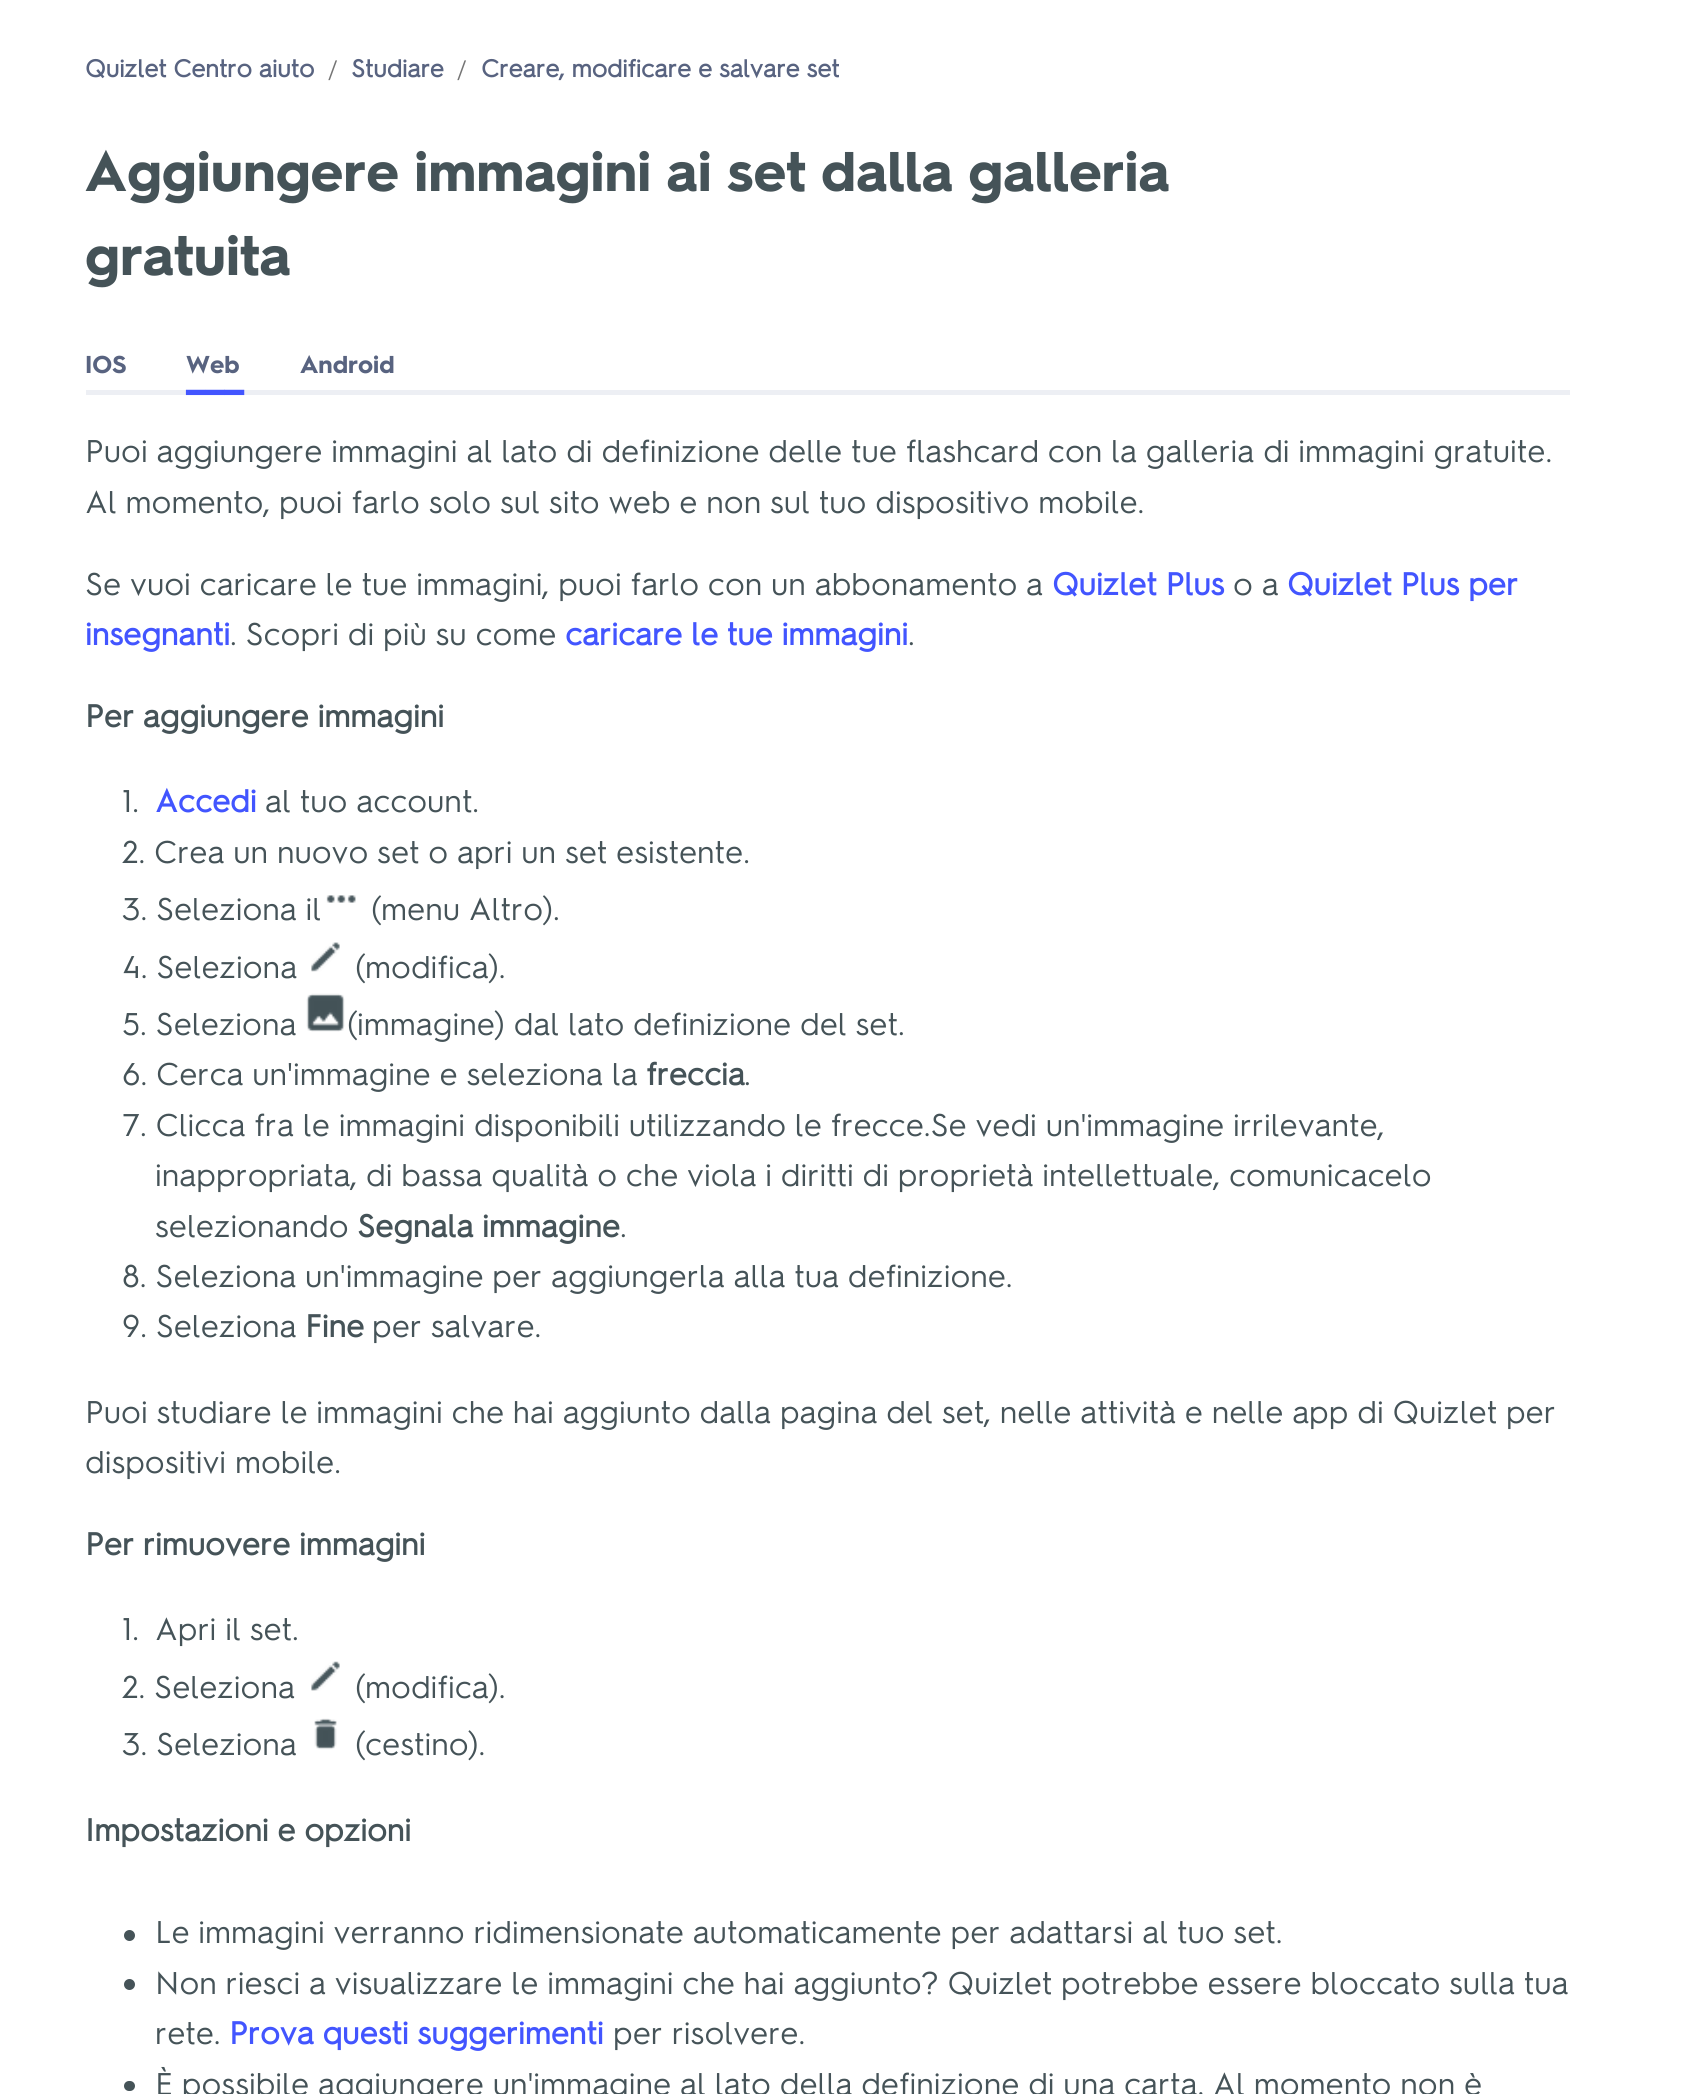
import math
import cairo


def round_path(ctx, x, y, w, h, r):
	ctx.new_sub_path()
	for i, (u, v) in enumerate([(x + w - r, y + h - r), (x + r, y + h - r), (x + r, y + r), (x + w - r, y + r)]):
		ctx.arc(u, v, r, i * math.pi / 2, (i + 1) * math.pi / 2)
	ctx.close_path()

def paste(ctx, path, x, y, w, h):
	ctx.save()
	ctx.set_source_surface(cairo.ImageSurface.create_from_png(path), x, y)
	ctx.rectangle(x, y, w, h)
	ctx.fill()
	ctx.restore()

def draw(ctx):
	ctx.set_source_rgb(1, 1, 1)
	ctx.paint()
	ctx.select_font_face('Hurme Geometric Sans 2', cairo.FONT_SLANT_NORMAL, cairo.FONT_WEIGHT_BOLD)
	ctx.set_font_size(24.5)
	ctx.set_source_rgb(0.345, 0.388, 0.502)
	ctx.move_to(85, 77)
	ctx.show_text('Quizlet Centro aiuto')
	ctx.select_font_face('Hurme Geometric Sans 2')
	ctx.set_font_size(23)
	ctx.set_source_rgb(0.459, 0.459, 0.459)
	ctx.move_to(328, 77)
	ctx.show_text('/')
	ctx.select_font_face('Hurme Geometric Sans 2', cairo.FONT_SLANT_NORMAL, cairo.FONT_WEIGHT_BOLD)
	ctx.set_font_size(24.5)
	ctx.set_source_rgb(0.345, 0.388, 0.502)
	ctx.move_to(351, 77)
	ctx.show_text('Studiare')
	ctx.select_font_face('Hurme Geometric Sans 2')
	ctx.set_font_size(23)
	ctx.set_source_rgb(0.459, 0.459, 0.459)
	ctx.move_to(457, 77)
	ctx.show_text('/')
	ctx.select_font_face('Hurme Geometric Sans 2', cairo.FONT_SLANT_NORMAL, cairo.FONT_WEIGHT_BOLD)
	ctx.set_font_size(24.5)
	ctx.set_source_rgb(0.345, 0.388, 0.502)
	ctx.move_to(481, 77)
	ctx.show_text('Creare, modificare e salvare set')
	ctx.select_font_face('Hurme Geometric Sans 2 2', cairo.FONT_SLANT_NORMAL, cairo.FONT_WEIGHT_BOLD)
	ctx.set_font_size(56)
	ctx.set_source_rgb(0.271, 0.325, 0.345)
	ctx.move_to(85, 191)
	ctx.show_text('Aggiungere immagini ai set dalla galleria')
	ctx.move_to(85, 275)
	ctx.show_text('gratuita')
	ctx.set_font_size(24.5)
	ctx.set_source_rgb(0.345, 0.388, 0.502)
	ctx.move_to(85, 373)
	ctx.show_text('IOS')
	ctx.move_to(186, 373)
	ctx.show_text('Web')
	ctx.set_source_rgb(0.929, 0.937, 0.957)
	ctx.rectangle(86, 390, 1484, 5)
	ctx.fill()
	ctx.set_font_size(46)
	ctx.set_source_rgb(0.259, 0.333, 1)
	ctx.move_to(186, 387)
	ctx.show_text('___')
	ctx.set_font_size(24.5)
	ctx.set_source_rgb(0.345, 0.388, 0.502)
	ctx.move_to(300, 373)
	ctx.show_text('Android')
	ctx.select_font_face('Hurme Geometric Sans 2')
	ctx.set_font_size(31.5)
	ctx.set_source_rgb(0.271, 0.325, 0.345)
	for x, y, s in [
		(85, 462, 'Puoi aggiungere immagini al lato di definizione delle tue flashcard con la galleria di immagini gratuite.'),
		(85, 513, 'Al momento, puoi farlo solo sul sito web e non sul tuo dispositivo mobile.'),
		(85, 595, 'Se vuoi caricare le tue immagini, puoi farlo con un abbonamento a'),
	]:
		ctx.move_to(x, y)
		ctx.show_text(s)
	ctx.select_font_face('Hurme Geometric Sans 2', cairo.FONT_SLANT_NORMAL, cairo.FONT_WEIGHT_BOLD)
	ctx.set_source_rgb(0.259, 0.333, 1)
	ctx.move_to(1052, 595)
	ctx.show_text('Quizlet Plus')
	ctx.select_font_face('Hurme Geometric Sans 2')
	ctx.set_source_rgb(0.271, 0.325, 0.345)
	ctx.move_to(1233, 595)
	ctx.show_text('o a')
	ctx.select_font_face('Hurme Geometric Sans 2', cairo.FONT_SLANT_NORMAL, cairo.FONT_WEIGHT_BOLD)
	ctx.set_source_rgb(0.259, 0.333, 1)
	ctx.move_to(1287, 595)
	ctx.show_text('Quizlet Plus per')
	ctx.move_to(85, 645)
	ctx.show_text('insegnanti')
	ctx.select_font_face('Hurme Geometric Sans 2')
	ctx.set_source_rgb(0.271, 0.325, 0.345)
	ctx.move_to(230, 645)
	ctx.show_text('. Scopri di più su come')
	ctx.select_font_face('Hurme Geometric Sans 2', cairo.FONT_SLANT_NORMAL, cairo.FONT_WEIGHT_BOLD)
	ctx.set_source_rgb(0.259, 0.333, 1)
	ctx.move_to(565, 645)
	ctx.show_text('caricare le tue immagini')
	ctx.select_font_face('Hurme Geometric Sans 2')
	ctx.set_source_rgb(0.271, 0.325, 0.345)
	ctx.move_to(908, 645)
	ctx.show_text('.')
	ctx.select_font_face('Hurme Geometric Sans 2', cairo.FONT_SLANT_NORMAL, cairo.FONT_WEIGHT_BOLD)
	ctx.move_to(85, 727)
	ctx.show_text('Per aggiungere immagini')
	ctx.select_font_face('Hurme Geometric Sans 2')
	ctx.move_to(122, 812)
	ctx.show_text('1.')
	ctx.select_font_face('Hurme Geometric Sans 2', cairo.FONT_SLANT_NORMAL, cairo.FONT_WEIGHT_BOLD)
	ctx.set_source_rgb(0.259, 0.333, 1)
	ctx.move_to(155, 812)
	ctx.show_text('Accedi')
	ctx.select_font_face('Hurme Geometric Sans 2')
	ctx.set_source_rgb(0.271, 0.325, 0.345)
	for x, y, s in [
		(265, 812, 'al tuo account.'),
		(122, 863, '2. Crea un nuovo set o apri un set esistente.'),
		(122, 920, '3. Seleziona il'),
	]:
		ctx.move_to(x, y)
		ctx.show_text(s)
	paste(ctx, 'media/1.png', 326, 895, 30, 8)
	ctx.move_to(371, 920)
	ctx.show_text('(menu Altro).')
	ctx.move_to(122, 978)
	ctx.show_text('4. Seleziona')
	paste(ctx, 'media/2.png', 311, 942, 29, 30)
	ctx.move_to(355, 978)
	ctx.show_text('(modifica).')
	ctx.move_to(122, 1035)
	ctx.show_text('5. Seleziona')
	paste(ctx, 'media/3.png', 306, 993, 39, 39)
	ctx.move_to(347, 1035)
	ctx.show_text('(immagine) dal lato definizione del set.')
	ctx.move_to(122, 1085)
	ctx.show_text('6. Cerca un\'immagine e seleziona la')
	ctx.select_font_face('Hurme Geometric Sans 2', cairo.FONT_SLANT_NORMAL, cairo.FONT_WEIGHT_BOLD)
	ctx.move_to(646, 1085)
	ctx.show_text('freccia')
	ctx.select_font_face('Hurme Geometric Sans 2')
	for x, y, s in [
		(744, 1085, '.'),
		(122, 1136, '7. Clicca fra le immagini disponibili utilizzando le frecce.Se vedi un\'immagine irrilevante,'),
		(155, 1186, 'inappropriata, di bassa qualità o che viola i diritti di proprietà intellettuale, comunicacelo'),
		(155, 1237, 'selezionando'),
	]:
		ctx.move_to(x, y)
		ctx.show_text(s)
	ctx.select_font_face('Hurme Geometric Sans 2', cairo.FONT_SLANT_NORMAL, cairo.FONT_WEIGHT_BOLD)
	ctx.move_to(357, 1237)
	ctx.show_text('Segnala immagine')
	ctx.select_font_face('Hurme Geometric Sans 2')
	for x, y, s in [
		(620, 1237, '.'),
		(122, 1287, '8. Seleziona un\'immagine per aggiungerla alla tua definizione.'),
		(122, 1337, '9. Seleziona'),
	]:
		ctx.move_to(x, y)
		ctx.show_text(s)
	ctx.select_font_face('Hurme Geometric Sans 2', cairo.FONT_SLANT_NORMAL, cairo.FONT_WEIGHT_BOLD)
	ctx.move_to(305, 1337)
	ctx.show_text('Fine')
	ctx.select_font_face('Hurme Geometric Sans 2')
	for x, y, s in [
		(372, 1337, 'per salvare.'),
		(85, 1423, 'Puoi studiare le immagini che hai aggiunto dalla pagina del set, nelle attività e nelle app di Quizlet per'),
		(85, 1473, 'dispositivi mobile.'),
	]:
		ctx.move_to(x, y)
		ctx.show_text(s)
	ctx.select_font_face('Hurme Geometric Sans 2', cairo.FONT_SLANT_NORMAL, cairo.FONT_WEIGHT_BOLD)
	ctx.move_to(85, 1555)
	ctx.show_text('Per rimuovere immagini')
	ctx.select_font_face('Hurme Geometric Sans 2')
	ctx.move_to(122, 1640)
	ctx.show_text('1.')
	ctx.move_to(155, 1640)
	ctx.show_text('Apri il set.')
	ctx.move_to(122, 1698)
	ctx.show_text('2. Seleziona')
	paste(ctx, 'media/4.png', 311, 1661, 29, 30)
	ctx.move_to(355, 1698)
	ctx.show_text('(modifica).')
	ctx.move_to(122, 1755)
	ctx.show_text('3. Seleziona')
	paste(ctx, 'media/5.png', 314, 1718, 23, 32)
	ctx.move_to(355, 1755)
	ctx.show_text('(cestino).')
	ctx.select_font_face('Hurme Geometric Sans 2', cairo.FONT_SLANT_NORMAL, cairo.FONT_WEIGHT_BOLD)
	ctx.move_to(85, 1841)
	ctx.show_text('Impostazioni e opzioni')
	ctx.new_path()
	ctx.arc(129.5, 1935.5, 5.5, 0, 2 * math.pi)
	ctx.fill()
	ctx.select_font_face('Hurme Geometric Sans 2')
	ctx.move_to(155, 1943)
	ctx.show_text('Le immagini verranno ridimensionate automaticamente per adattarsi al tuo set.')
	ctx.new_path()
	ctx.arc(129.5, 1984.5, 5.5, 0, 2 * math.pi)
	ctx.fill()
	ctx.move_to(155, 1994)
	ctx.show_text('Non riesci a visualizzare le immagini che hai aggiunto? Quizlet potrebbe essere bloccato sulla tua')
	ctx.move_to(155, 2044)
	ctx.show_text('rete.')
	ctx.select_font_face('Hurme Geometric Sans 2', cairo.FONT_SLANT_NORMAL, cairo.FONT_WEIGHT_BOLD)
	ctx.set_source_rgb(0.259, 0.333, 1)
	ctx.move_to(229, 2044)
	ctx.show_text('Prova questi suggerimenti')
	ctx.select_font_face('Hurme Geometric Sans 2')
	ctx.set_source_rgb(0.271, 0.325, 0.345)
	ctx.move_to(613, 2044)
	ctx.show_text('per risolvere.')
	round_path(ctx, 124, 2081, 11, 10, 5)
	ctx.fill()
	ctx.move_to(155, 2095)
	ctx.show_text('È possibile aggiungere un\'immagine al lato della definizione di una carta. Al momento non è')


surface = cairo.ImageSurface(cairo.FORMAT_RGB24, 1696, 2094)
ctx = cairo.Context(surface)
options = cairo.FontOptions()
options.set_hint_metrics(cairo.HINT_METRICS_OFF)
options.set_hint_style(cairo.HINT_STYLE_NONE)
ctx.set_font_options(options)
ctx.set_miter_limit(4)
draw(ctx)
surface.write_to_png('image.png')
